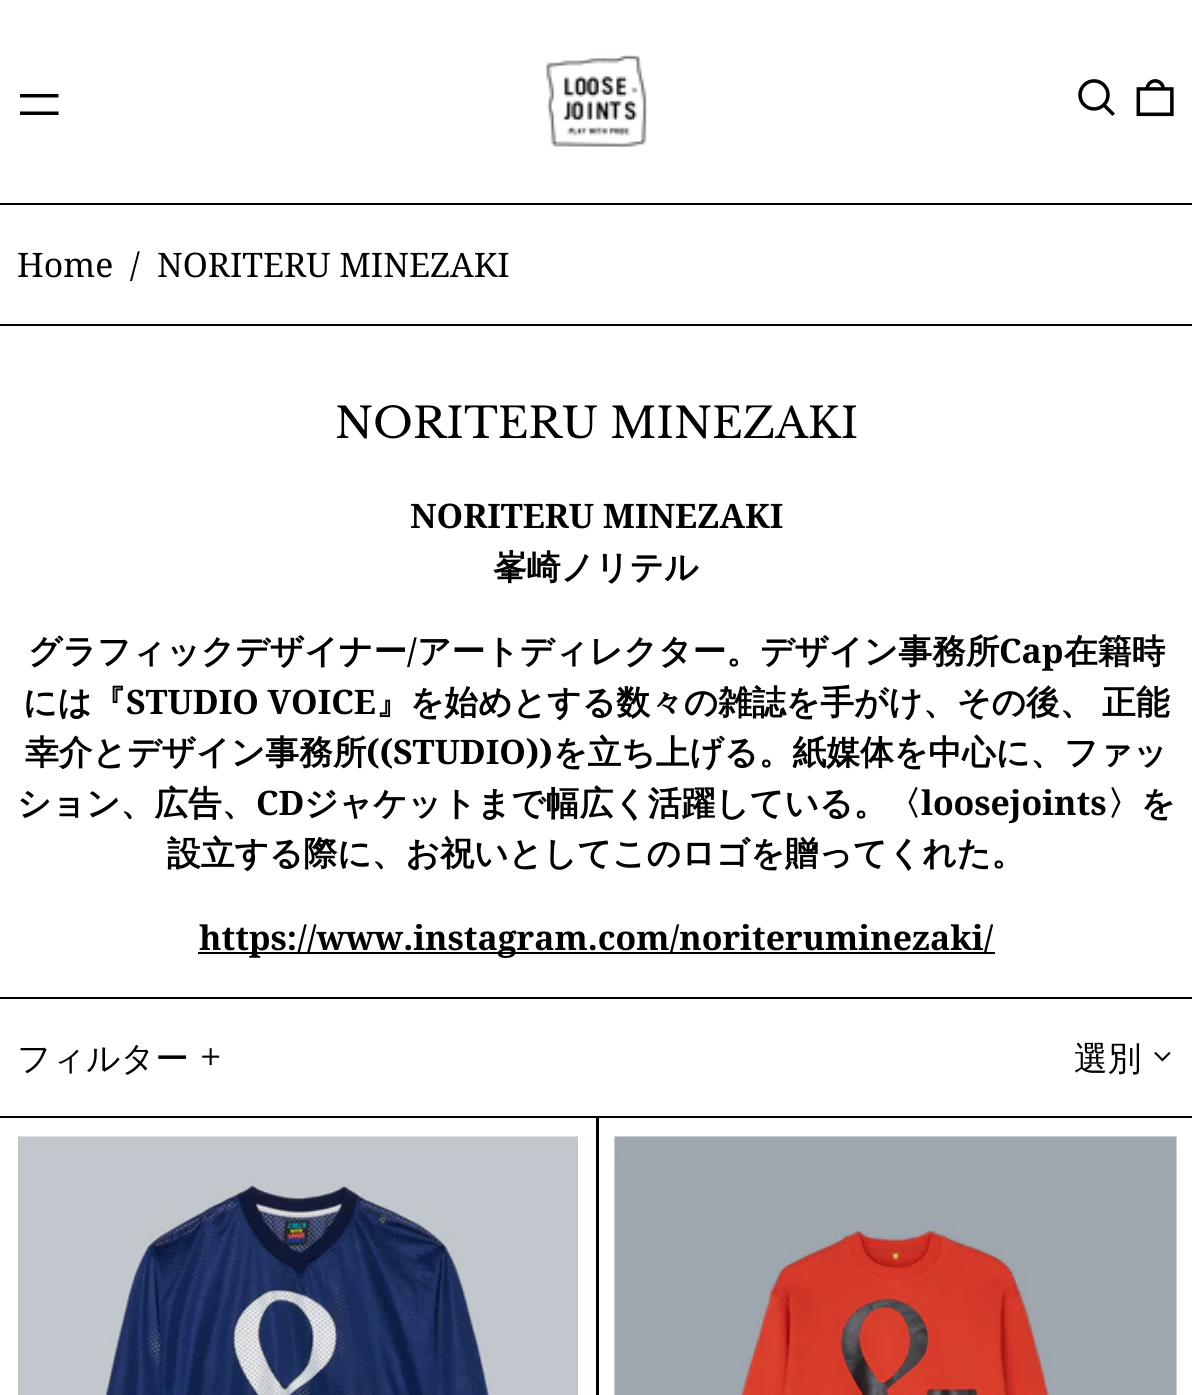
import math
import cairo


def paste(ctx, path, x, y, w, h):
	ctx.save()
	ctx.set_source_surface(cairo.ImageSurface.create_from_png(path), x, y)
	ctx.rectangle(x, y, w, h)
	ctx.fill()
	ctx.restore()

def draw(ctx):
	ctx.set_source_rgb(1, 1, 1)
	ctx.paint()
	ctx.set_source_rgb(0, 0, 0)
	ctx.rectangle(0, 203, 1192, 2)
	ctx.fill()
	ctx.set_fill_rule(cairo.FILL_RULE_EVEN_ODD)
	ctx.new_path()
	ctx.move_to(58.5, 111.5)
	ctx.line_to(58.5, 115)
	ctx.line_to(20, 115)
	ctx.line_to(20, 111.5)
	ctx.close_path()
	ctx.move_to(58.5, 94)
	ctx.line_to(58.5, 97.5)
	ctx.line_to(20, 97.5)
	ctx.line_to(20, 94)
	ctx.close_path()
	ctx.fill()
	paste(ctx, 'media/1.png', 546, 54, 101, 94)
	paste(ctx, 'media/2.png', 1078, 79, 37, 37)
	paste(ctx, 'media/3.png', 1136, 79, 38, 38)
	ctx.select_font_face('Noto Serif')
	ctx.set_font_size(33.75)
	for x, y, s in [
		(17, 277, 'Home'),
		(130, 277, '/'),
		(157, 277, 'NORITERU MINEZAKI'),
	]:
		ctx.move_to(x, y)
		ctx.show_text(s)
	ctx.rectangle(0, 324, 1192, 2)
	ctx.fill()
	ctx.rectangle(0, 997, 1192, 2)
	ctx.fill()
	ctx.select_font_face('Libre Baskerville')
	ctx.set_font_size(42.25)
	ctx.move_to(335, 438)
	ctx.show_text('NORITERU MINEZAKI')
	ctx.select_font_face('Noto Serif', cairo.FONT_SLANT_NORMAL, cairo.FONT_WEIGHT_BOLD)
	ctx.set_font_size(33.75)
	ctx.move_to(410, 528)
	ctx.show_text('NORITERU MINEZAKI')
	ctx.select_font_face('WenQuanYi Zen Hei', cairo.FONT_SLANT_NORMAL, cairo.FONT_WEIGHT_BOLD)
	ctx.move_to(493, 579)
	ctx.show_text('峯崎ノリテル')
	ctx.move_to(28, 663)
	ctx.show_text('グラフィックデザイナー')
	ctx.select_font_face('Noto Serif', cairo.FONT_SLANT_NORMAL, cairo.FONT_WEIGHT_BOLD)
	ctx.move_to(407, 663)
	ctx.show_text('/')
	ctx.select_font_face('WenQuanYi Zen Hei', cairo.FONT_SLANT_NORMAL, cairo.FONT_WEIGHT_BOLD)
	ctx.move_to(417, 663)
	ctx.show_text('アートディレクター。デザイン事務所')
	ctx.select_font_face('Noto Serif', cairo.FONT_SLANT_NORMAL, cairo.FONT_WEIGHT_BOLD)
	ctx.move_to(999, 663)
	ctx.show_text('Cap')
	ctx.select_font_face('WenQuanYi Zen Hei', cairo.FONT_SLANT_NORMAL, cairo.FONT_WEIGHT_BOLD)
	ctx.move_to(1064, 663)
	ctx.show_text('在籍時')
	ctx.move_to(23, 714)
	ctx.show_text('には『')
	ctx.select_font_face('Noto Serif', cairo.FONT_SLANT_NORMAL, cairo.FONT_WEIGHT_BOLD)
	ctx.move_to(126, 714)
	ctx.show_text('STUDIO VOICE')
	ctx.select_font_face('WenQuanYi Zen Hei', cairo.FONT_SLANT_NORMAL, cairo.FONT_WEIGHT_BOLD)
	for x, y, s in [
		(376, 714, '』を始めとする数々の雑誌を手がけ、その後、'),
		(1102, 714, '正能'),
		(25, 764, '幸介とデザイン事務所'),
	]:
		ctx.move_to(x, y)
		ctx.show_text(s)
	ctx.select_font_face('Noto Serif', cairo.FONT_SLANT_NORMAL, cairo.FONT_WEIGHT_BOLD)
	ctx.move_to(366, 764)
	ctx.show_text('((STUDIO))')
	ctx.select_font_face('WenQuanYi Zen Hei', cairo.FONT_SLANT_NORMAL, cairo.FONT_WEIGHT_BOLD)
	ctx.move_to(553, 764)
	ctx.show_text('を立ち上げる。紙媒体を中心に、ファッ')
	ctx.move_to(17, 815)
	ctx.show_text('ション、広告、')
	ctx.select_font_face('Noto Serif', cairo.FONT_SLANT_NORMAL, cairo.FONT_WEIGHT_BOLD)
	ctx.move_to(256, 815)
	ctx.show_text('CD')
	ctx.select_font_face('WenQuanYi Zen Hei', cairo.FONT_SLANT_NORMAL, cairo.FONT_WEIGHT_BOLD)
	ctx.move_to(304, 815)
	ctx.show_text('ジャケットまで幅広く活躍している。〈')
	ctx.select_font_face('Noto Serif', cairo.FONT_SLANT_NORMAL, cairo.FONT_WEIGHT_BOLD)
	ctx.move_to(921, 815)
	ctx.show_text('loosejoints')
	ctx.select_font_face('WenQuanYi Zen Hei', cairo.FONT_SLANT_NORMAL, cairo.FONT_WEIGHT_BOLD)
	ctx.move_to(1107, 815)
	ctx.show_text('〉を')
	ctx.move_to(167, 865)
	ctx.show_text('設立する際に、お祝いとしてこのロゴを贈ってくれた。')
	ctx.rectangle(198, 952, 797, 2)
	ctx.fill()
	ctx.select_font_face('Noto Serif', cairo.FONT_SLANT_NORMAL, cairo.FONT_WEIGHT_BOLD)
	ctx.move_to(199, 950)
	ctx.show_text('https://www.instagram.com/noriteruminezaki/')
	ctx.rectangle(0, 1116, 1192, 2)
	ctx.fill()
	ctx.select_font_face('WenQuanYi Zen Hei Medium')
	ctx.move_to(17, 1070)
	ctx.show_text('フィルター')
	paste(ctx, 'media/4.png', 202, 1048, 18, 18)
	ctx.move_to(1074, 1070)
	ctx.show_text('選別')
	paste(ctx, 'media/5.png', 1154, 1051, 17, 11)
	ctx.rectangle(596, 1118, 3, 277)
	ctx.fill()
	paste(ctx, 'media/6.png', 18, 1136, 561, 259)
	paste(ctx, 'media/7.png', 614, 1136, 563, 259)


surface = cairo.ImageSurface(cairo.FORMAT_RGB24, 1192, 1395)
ctx = cairo.Context(surface)
options = cairo.FontOptions()
options.set_hint_metrics(cairo.HINT_METRICS_OFF)
options.set_hint_style(cairo.HINT_STYLE_NONE)
ctx.set_font_options(options)
ctx.set_miter_limit(4)
draw(ctx)
surface.write_to_png('image.png')
